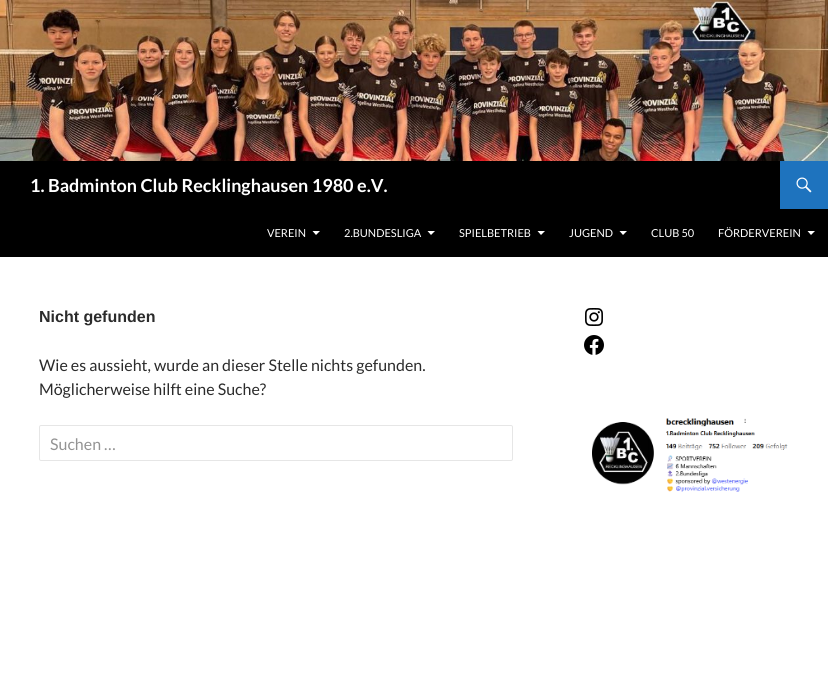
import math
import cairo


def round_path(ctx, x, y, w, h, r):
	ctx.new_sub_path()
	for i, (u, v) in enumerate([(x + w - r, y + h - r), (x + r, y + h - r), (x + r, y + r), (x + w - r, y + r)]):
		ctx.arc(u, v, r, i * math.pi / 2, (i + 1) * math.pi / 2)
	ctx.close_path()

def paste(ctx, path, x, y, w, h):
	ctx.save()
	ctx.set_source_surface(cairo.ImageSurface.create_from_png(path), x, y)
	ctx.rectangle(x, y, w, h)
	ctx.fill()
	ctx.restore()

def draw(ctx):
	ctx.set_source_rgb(1, 1, 1)
	ctx.paint()
	paste(ctx, 'media/1.png', 0, 0, 828, 161)
	ctx.set_source_rgb(0, 0, 0)
	ctx.rectangle(0, 161, 828, 96)
	ctx.fill()
	ctx.select_font_face('Lato', cairo.FONT_SLANT_NORMAL, cairo.FONT_WEIGHT_BOLD)
	ctx.set_font_size(18)
	ctx.set_source_rgb(1, 1, 1)
	ctx.move_to(30, 192)
	ctx.show_text('1. Badminton Club Recklinghausen 1980 e.V.')
	ctx.set_source_rgb(0.118, 0.451, 0.745)
	ctx.rectangle(780, 161, 48, 48)
	ctx.fill()
	paste(ctx, 'media/2.png', 796, 177, 16, 16)
	ctx.select_font_face('Lato')
	ctx.set_font_size(11)
	ctx.set_source_rgb(1, 1, 1)
	ctx.move_to(267, 237)
	ctx.show_text('VEREIN')
	ctx.new_path()
	ctx.move_to(312.5, 231)
	ctx.line_to(320, 231)
	ctx.line_to(316, 235)
	ctx.close_path()
	ctx.fill()
	ctx.move_to(344, 237)
	ctx.show_text('2.BUNDESLIGA')
	ctx.new_path()
	ctx.move_to(427.5, 231)
	ctx.line_to(435, 231)
	ctx.line_to(431, 235)
	ctx.close_path()
	ctx.fill()
	ctx.move_to(459, 237)
	ctx.show_text('SPIELBETRIEB')
	ctx.new_path()
	ctx.move_to(537.5, 231)
	ctx.line_to(545, 231)
	ctx.line_to(541, 235)
	ctx.close_path()
	ctx.fill()
	ctx.move_to(569, 237)
	ctx.show_text('JUGEND')
	ctx.new_path()
	ctx.move_to(619.5, 231)
	ctx.line_to(627, 231)
	ctx.line_to(623, 235)
	ctx.close_path()
	ctx.fill()
	ctx.move_to(651, 237)
	ctx.show_text('CLUB 50')
	ctx.move_to(718, 237)
	ctx.show_text('FÖRDERVEREIN')
	ctx.new_path()
	ctx.move_to(807.5, 231)
	ctx.line_to(815, 231)
	ctx.line_to(811, 235)
	ctx.close_path()
	ctx.fill()
	ctx.select_font_face('Liberation Sans', cairo.FONT_SLANT_NORMAL, cairo.FONT_WEIGHT_BOLD)
	ctx.set_font_size(16)
	ctx.set_source_rgb(0.169, 0.169, 0.169)
	ctx.move_to(39, 322)
	ctx.show_text('Nicht gefunden')
	ctx.select_font_face('Lato')
	ctx.move_to(39, 371)
	ctx.show_text('Wie es aussieht, wurde an dieser Stelle nichts gefunden.')
	ctx.move_to(39, 395)
	ctx.show_text('Möglicherweise hilft eine Suche?')
	round_path(ctx, 39.5, 425.5, 473, 35, 1.5)
	ctx.set_source_rgb(0.902, 0.902, 0.902)
	ctx.set_line_width(1)
	ctx.stroke()
	ctx.set_source_rgb(0.576, 0.576, 0.576)
	ctx.move_to(50, 450)
	ctx.show_text('Suchen …')
	paste(ctx, 'media/3.png', 585, 308, 18, 18)
	paste(ctx, 'media/4.png', 584, 335, 20, 20)
	paste(ctx, 'media/5.png', 592, 418, 196, 74)


surface = cairo.ImageSurface(cairo.FORMAT_RGB24, 828, 690)
ctx = cairo.Context(surface)
options = cairo.FontOptions()
options.set_hint_metrics(cairo.HINT_METRICS_OFF)
options.set_hint_style(cairo.HINT_STYLE_NONE)
ctx.set_font_options(options)
ctx.set_miter_limit(4)
draw(ctx)
surface.write_to_png('image.png')
